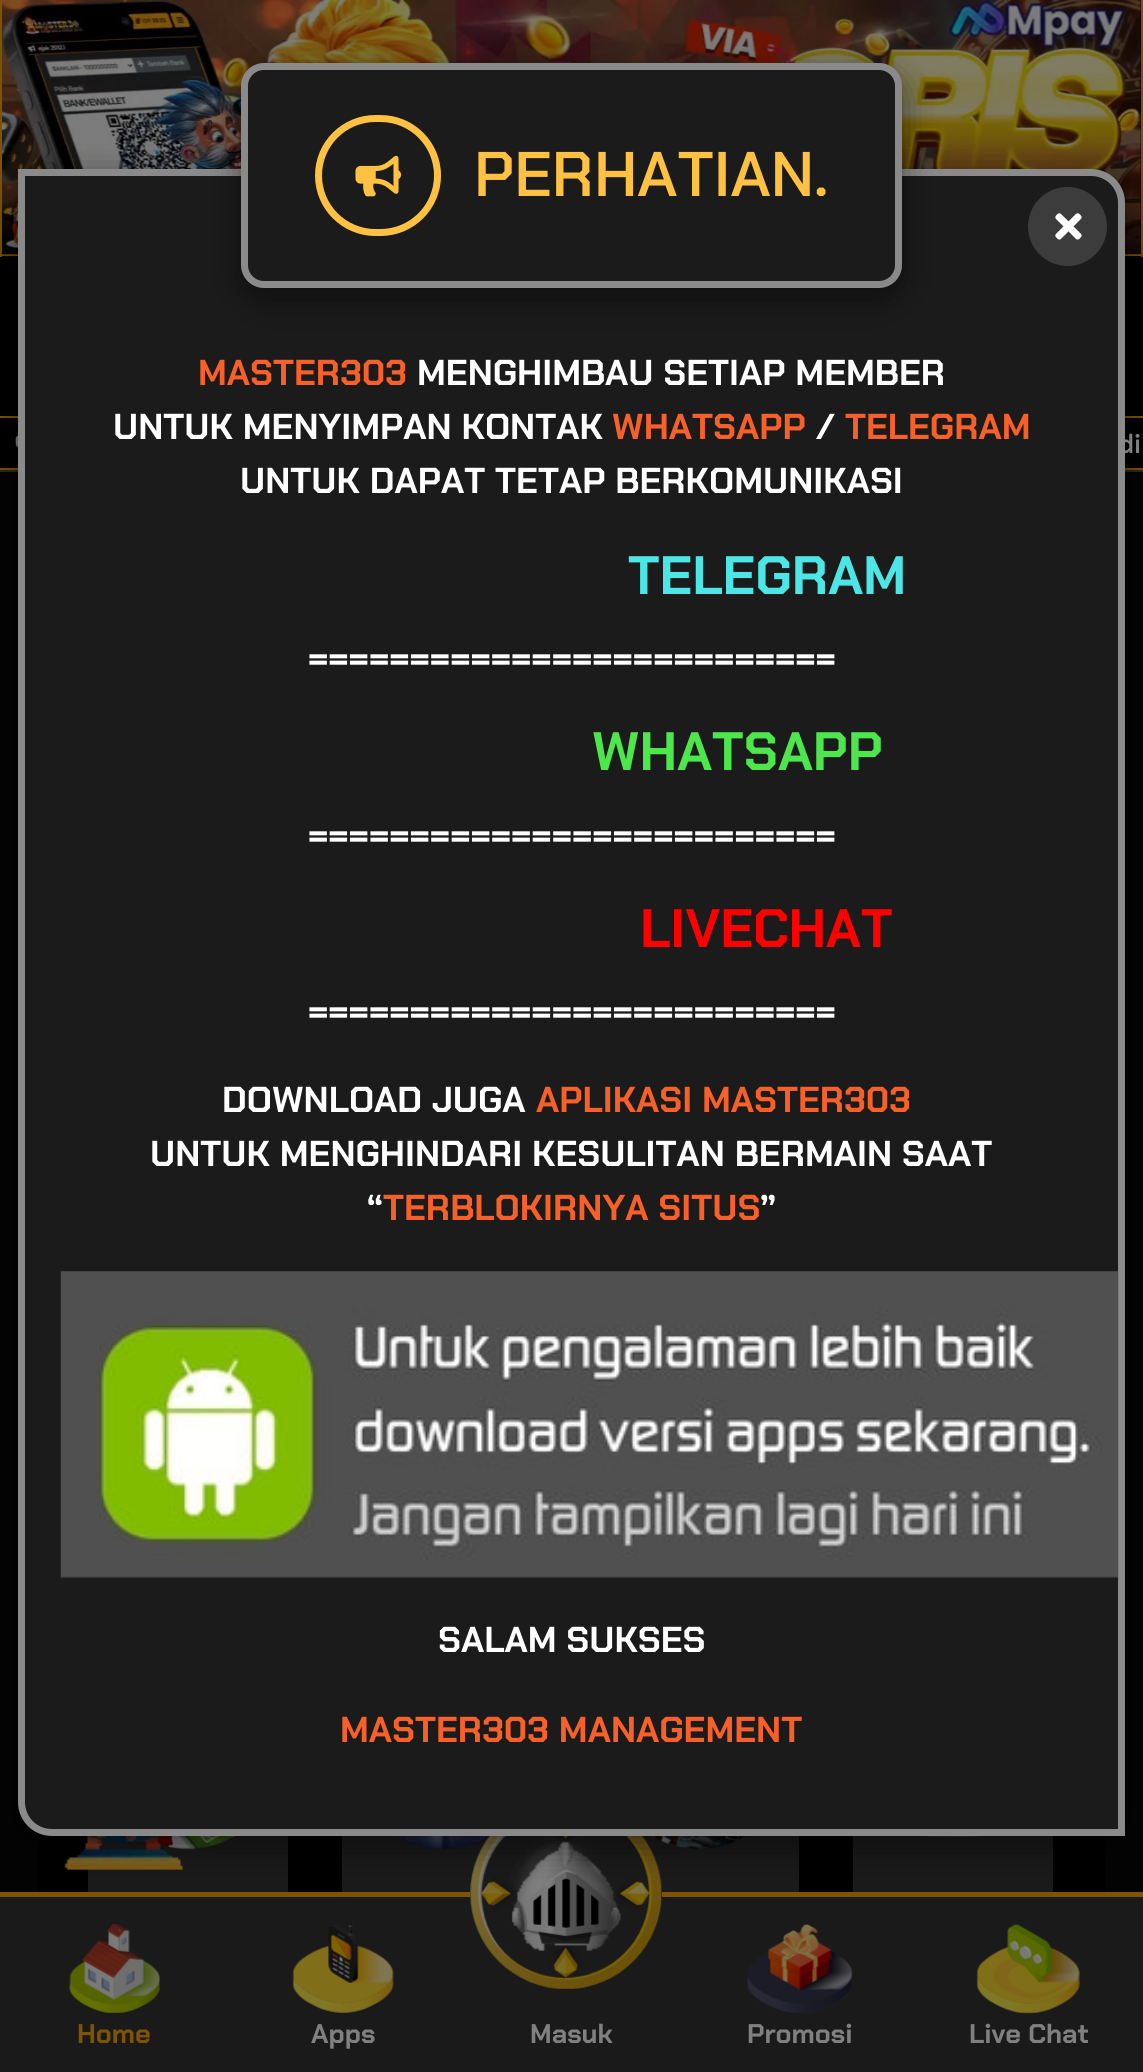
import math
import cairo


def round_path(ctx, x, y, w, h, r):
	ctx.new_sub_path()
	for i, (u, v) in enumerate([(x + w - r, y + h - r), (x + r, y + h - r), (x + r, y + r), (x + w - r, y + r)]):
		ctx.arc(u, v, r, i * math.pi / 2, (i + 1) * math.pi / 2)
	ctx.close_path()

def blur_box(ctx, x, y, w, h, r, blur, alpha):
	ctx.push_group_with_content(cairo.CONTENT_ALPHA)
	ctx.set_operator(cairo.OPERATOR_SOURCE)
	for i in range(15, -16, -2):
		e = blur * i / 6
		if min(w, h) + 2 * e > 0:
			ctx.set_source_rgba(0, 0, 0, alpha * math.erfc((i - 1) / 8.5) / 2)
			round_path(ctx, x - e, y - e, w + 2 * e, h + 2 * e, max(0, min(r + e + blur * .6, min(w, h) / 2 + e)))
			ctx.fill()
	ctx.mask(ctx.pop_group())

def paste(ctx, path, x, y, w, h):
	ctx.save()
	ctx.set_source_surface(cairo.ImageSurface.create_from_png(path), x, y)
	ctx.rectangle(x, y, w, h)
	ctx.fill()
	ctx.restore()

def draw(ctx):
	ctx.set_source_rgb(0.012, 0.012, 0.012)
	ctx.paint()
	ctx.set_source_rgb(0.498, 0.325, 0.004)
	ctx.rectangle(1141, 0, 2, 257)
	ctx.rectangle(0, 254, 1143, 2)
	ctx.rectangle(0, 0, 2, 257)
	ctx.fill()
	paste(ctx, 'media/1.png', 2, 0, 1139, 255)
	ctx.set_source_rgb(0, 0, 0)
	ctx.rectangle(38, 1833, 1067, 59)
	ctx.fill()
	ctx.set_source_rgb(0.102, 0.102, 0.102)
	ctx.rectangle(88, 1836, 200, 56)
	ctx.fill()
	paste(ctx, 'media/5.png', 157, 1836, 79, 16)
	ctx.rectangle(342, 1836, 148, 56)
	ctx.fill()
	paste(ctx, 'media/6.png', 390, 1836, 100, 14)
	ctx.rectangle(642, 1836, 157, 56)
	ctx.fill()
	paste(ctx, 'media/7.png', 650, 1836, 97, 14)
	ctx.rectangle(853, 1836, 200, 56)
	ctx.fill()
	paste(ctx, 'media/8.png', 923, 1836, 58, 2)
	ctx.set_source_rgb(0, 0, 0)
	blur_box(ctx, -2, 254, 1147, 221, 0, 11, 0.15)
	ctx.set_source_rgb(0, 0, 0)
	ctx.rectangle(0, 257, 1143, 216)
	ctx.fill()
	ctx.set_source_rgb(0.153, 0.153, 0.153)
	ctx.rectangle(0, 470, 1143, 2)
	ctx.fill()
	ctx.set_source_rgb(0.498, 0.325, 0.004)
	ctx.rectangle(0, 416, 1143, 2)
	ctx.rectangle(0, 468, 1143, 2)
	ctx.fill()
	paste(ctx, 'media/9.png', 15, 435, 3, 12)
	paste(ctx, 'media/10.png', 64, 1836, 119, 34)
	ctx.set_source_rgb(0.102, 0.102, 0.102)
	ctx.rectangle(0, 1897, 1143, 175)
	ctx.fill()
	ctx.set_source_rgb(0.498, 0.325, 0.004)
	ctx.rectangle(0, 1892, 1143, 5)
	ctx.fill()
	ctx.set_source_rgb(0.102, 0.102, 0.102)
	round_path(ctx, 470, 1798, 192, 191, 95.5)
	ctx.fill()
	paste(ctx, 'media/13.png', 470, 1836, 192, 153)
	ctx.set_source_rgb(0, 0, 0)
	blur_box(ctx, 18, 180, 1107, 1667, 34, 17, 0.5)
	ctx.select_font_face('Chakra Petch SemiBold')
	ctx.set_font_size(27)
	ctx.set_source_rgb(0.502, 0.502, 0.502)
	ctx.move_to(1118, 453)
	ctx.show_text('di')
	ctx.set_source_rgb(0.106, 0.106, 0.106)
	ctx.new_path()
	ctx.move_to(21.5, 172.5)
	ctx.line_to(1091, 172.5)
	ctx.curve_to(1108, 172.5, 1121.5, 186, 1121.5, 203)
	ctx.line_to(1121.5, 1832.5)
	ctx.line_to(52, 1832.5)
	ctx.curve_to(35, 1832.5, 21.5, 1819, 21.5, 1802)
	ctx.close_path()
	ctx.fill_preserve()
	ctx.set_source_rgb(0.541, 0.541, 0.541)
	ctx.set_line_width(7)
	ctx.stroke()
	ctx.set_source_rgb(0, 0, 0)
	blur_box(ctx, 241, 74, 661, 225, 23, 17, 0.5)
	ctx.set_source_rgb(0.106, 0.106, 0.106)
	round_path(ctx, 244.5, 66.5, 654, 218, 19.5)
	ctx.fill_preserve()
	ctx.set_source_rgb(0.541, 0.541, 0.541)
	ctx.stroke()
	round_path(ctx, 318.5, 118.5, 119, 114, 57)
	ctx.set_source_rgb(1, 0.757, 0.255)
	ctx.stroke()
	paste(ctx, 'media/2.png', 355, 155, 47, 42)
	ctx.set_font_size(63)
	ctx.move_to(474, 196)
	ctx.show_text('PERHATIAN.')
	ctx.set_source_rgb(0.235, 0.235, 0.235)
	ctx.new_path()
	ctx.arc(1067.5, 226.5, 39.5, 0, 2 * math.pi)
	ctx.fill()
	paste(ctx, 'media/3.png', 1055, 213, 27, 27)
	ctx.select_font_face('Chakra Petch', cairo.FONT_SLANT_NORMAL, cairo.FONT_WEIGHT_BOLD)
	ctx.set_font_size(36)
	ctx.set_source_rgb(0.965, 0.376, 0.157)
	ctx.move_to(198, 385)
	ctx.show_text('MASTER303')
	ctx.set_source_rgb(1, 1, 1)
	ctx.move_to(417, 385)
	ctx.show_text('MENGHIMBAU SETIAP MEMBER')
	ctx.move_to(113, 439)
	ctx.show_text('UNTUK MENYIMPAN KONTAK')
	ctx.set_source_rgb(0.965, 0.376, 0.157)
	ctx.move_to(612, 439)
	ctx.show_text('WHATSAPP')
	ctx.set_source_rgb(1, 1, 1)
	ctx.move_to(816, 439)
	ctx.show_text('/')
	ctx.set_source_rgb(0.965, 0.376, 0.157)
	ctx.move_to(845, 439)
	ctx.show_text('TELEGRAM')
	ctx.set_source_rgb(1, 1, 1)
	ctx.move_to(240, 493)
	ctx.show_text('UNTUK DAPAT TETAP BERKOMUNIKASI')
	ctx.set_font_size(54)
	ctx.set_source_rgb(0.302, 0.902, 0.902)
	ctx.move_to(628, 594)
	ctx.show_text('TELEGRAM')
	ctx.set_font_size(36)
	ctx.set_source_rgb(1, 1, 1)
	ctx.move_to(308, 669)
	ctx.show_text('==========================')
	ctx.set_font_size(54)
	ctx.set_source_rgb(0.302, 0.902, 0.302)
	ctx.move_to(592, 770)
	ctx.show_text('WHATSAPP')
	ctx.set_font_size(36)
	ctx.set_source_rgb(1, 1, 1)
	ctx.move_to(308, 846)
	ctx.show_text('==========================')
	ctx.set_font_size(54)
	ctx.set_source_rgb(1, 0, 0)
	ctx.move_to(640, 947)
	ctx.show_text('LIVECHAT')
	ctx.set_font_size(36)
	ctx.set_source_rgb(1, 1, 1)
	ctx.move_to(308, 1022)
	ctx.show_text('==========================')
	ctx.move_to(222, 1112)
	ctx.show_text('DOWNLOAD JUGA')
	ctx.set_source_rgb(0.965, 0.376, 0.157)
	ctx.move_to(536, 1112)
	ctx.show_text('APLIKASI MASTER303')
	ctx.set_source_rgb(1, 1, 1)
	ctx.move_to(150, 1166)
	ctx.show_text('UNTUK MENGHINDARI KESULITAN BERMAIN SAAT')
	ctx.move_to(367, 1220)
	ctx.show_text('“')
	ctx.set_source_rgb(0.965, 0.376, 0.157)
	ctx.move_to(383, 1220)
	ctx.show_text('TERBLOKIRNYA SITUS')
	ctx.set_source_rgb(1, 1, 1)
	ctx.move_to(760, 1220)
	ctx.show_text('”')
	paste(ctx, 'media/4.png', 60, 1271, 1059, 307)
	ctx.move_to(438, 1652)
	ctx.show_text('SALAM SUKSES')
	ctx.set_source_rgb(0.965, 0.376, 0.157)
	ctx.move_to(340, 1742)
	ctx.show_text('MASTER303 MANAGEMENT')
	paste(ctx, 'media/11.png', 69, 1924, 91, 89)
	ctx.set_font_size(27)
	ctx.set_source_rgb(0.498, 0.325, 0.004)
	ctx.move_to(77, 2043)
	ctx.show_text('Home')
	paste(ctx, 'media/12.png', 292, 1924, 102, 89)
	ctx.set_source_rgb(0.502, 0.502, 0.502)
	ctx.move_to(311, 2043)
	ctx.show_text('Apps')
	ctx.move_to(530, 2043)
	ctx.show_text('Masuk')
	paste(ctx, 'media/14.png', 747, 1924, 106, 90)
	ctx.move_to(747, 2043)
	ctx.show_text('Promosi')
	paste(ctx, 'media/15.png', 976, 1924, 104, 90)
	ctx.move_to(969, 2043)
	ctx.show_text('Live Chat')


surface = cairo.ImageSurface(cairo.FORMAT_RGB24, 1143, 2072)
ctx = cairo.Context(surface)
options = cairo.FontOptions()
options.set_hint_metrics(cairo.HINT_METRICS_OFF)
options.set_hint_style(cairo.HINT_STYLE_NONE)
ctx.set_font_options(options)
ctx.set_miter_limit(4)
draw(ctx)
surface.write_to_png('image.png')
